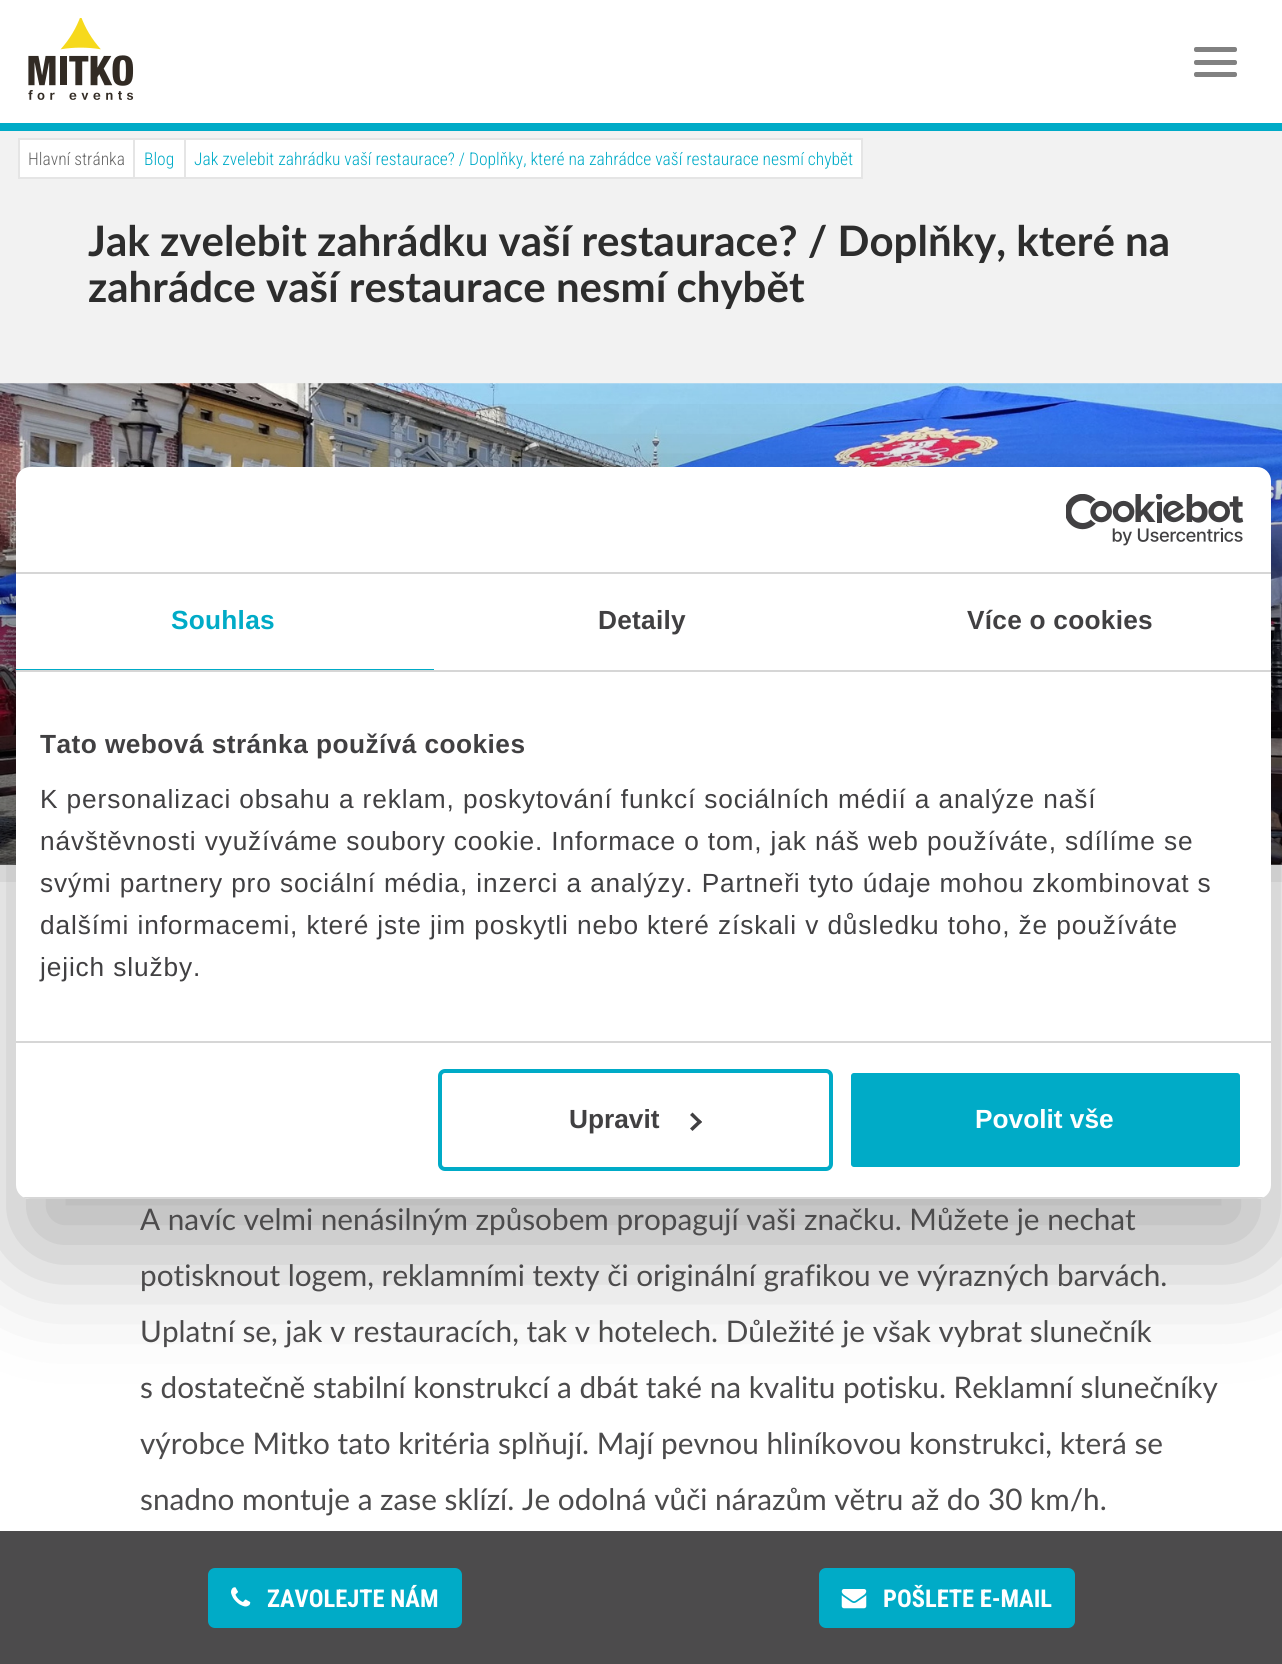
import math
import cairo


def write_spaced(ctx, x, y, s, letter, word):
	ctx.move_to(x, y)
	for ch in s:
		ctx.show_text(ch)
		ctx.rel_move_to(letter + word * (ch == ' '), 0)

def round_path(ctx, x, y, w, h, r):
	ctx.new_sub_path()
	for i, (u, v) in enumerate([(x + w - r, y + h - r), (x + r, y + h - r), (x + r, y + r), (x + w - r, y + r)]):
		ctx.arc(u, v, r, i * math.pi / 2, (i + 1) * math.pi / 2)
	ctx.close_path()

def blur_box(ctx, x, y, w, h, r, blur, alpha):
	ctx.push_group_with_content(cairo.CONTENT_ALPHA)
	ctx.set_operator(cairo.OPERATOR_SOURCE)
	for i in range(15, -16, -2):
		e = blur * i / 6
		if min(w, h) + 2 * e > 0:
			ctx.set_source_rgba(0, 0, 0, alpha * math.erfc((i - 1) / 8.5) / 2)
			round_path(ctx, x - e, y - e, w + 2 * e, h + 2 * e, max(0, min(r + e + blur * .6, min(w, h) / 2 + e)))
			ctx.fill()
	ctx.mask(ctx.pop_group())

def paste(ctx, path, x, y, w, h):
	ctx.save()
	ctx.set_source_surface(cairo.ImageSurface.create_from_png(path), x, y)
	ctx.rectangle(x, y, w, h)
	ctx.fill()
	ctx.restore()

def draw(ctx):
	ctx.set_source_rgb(1, 1, 1)
	ctx.paint()
	paste(ctx, 'media/1.png', 28, 18, 106, 82)
	ctx.set_source_rgb(0.506, 0.506, 0.506)
	round_path(ctx, 1194, 47, 43, 5, 2)
	ctx.fill()
	round_path(ctx, 1194, 60, 43, 5, 2)
	ctx.fill()
	round_path(ctx, 1194, 72, 43, 5, 2)
	ctx.fill()
	ctx.set_source_rgb(0, 0.671, 0.78)
	ctx.rectangle(0, 123, 1282, 8)
	ctx.fill()
	ctx.set_source_rgb(0.949, 0.949, 0.949)
	ctx.rectangle(0, 131, 1282, 751)
	ctx.fill()
	ctx.set_source_rgb(1, 1, 1)
	ctx.rectangle(19, 139, 115, 39)
	ctx.fill_preserve()
	ctx.set_source_rgb(0.898, 0.898, 0.898)
	ctx.stroke()
	ctx.select_font_face('Roboto Condensed Light')
	ctx.set_font_size(17.5)
	ctx.set_source_rgb(0.4, 0.4, 0.4)
	ctx.move_to(28, 165)
	ctx.show_text('Hlavní stránka')
	ctx.set_source_rgb(1, 1, 1)
	ctx.rectangle(134, 139, 51, 39)
	ctx.fill_preserve()
	ctx.set_source_rgb(0.898, 0.898, 0.898)
	ctx.stroke()
	ctx.set_source_rgb(0, 0.671, 0.78)
	ctx.move_to(144, 165)
	ctx.show_text('Blog')
	ctx.set_source_rgb(1, 1, 1)
	ctx.rectangle(185, 139, 677, 39)
	ctx.fill_preserve()
	ctx.set_source_rgb(0.898, 0.898, 0.898)
	ctx.stroke()
	ctx.set_source_rgb(0, 0.671, 0.78)
	ctx.move_to(194, 165)
	ctx.show_text('Jak zvelebit zahrádku vaší restaurace? / Doplňky, které na zahrádce vaší restaurace nesmí chybět')
	ctx.select_font_face('Lato', cairo.FONT_SLANT_NORMAL, cairo.FONT_WEIGHT_BOLD)
	ctx.set_font_size(42)
	ctx.set_source_rgb(0.176, 0.176, 0.176)
	ctx.move_to(88, 256)
	ctx.show_text('Jak zvelebit zahrádku vaší restaurace? / Doplňky, které na')
	ctx.move_to(88, 302)
	ctx.show_text('zahrádce vaší restaurace nesmí chybět')
	paste(ctx, 'media/2.png', 0, 383, 1282, 482)
	gradient = cairo.LinearGradient(641, 383, 641, 865)
	gradient.add_color_stop_rgba(0, 0, 0, 0, 0)
	gradient.add_color_stop_rgba(1, 0, 0, 0, 0.5)
	ctx.set_source(gradient)
	ctx.rectangle(0, 404, 1282, 461)
	ctx.fill()
	ctx.set_source_rgb(0, 0, 0)
	blur_box(ctx, 16, 523, 1255, 732, 14, 59.5, 0.3)
	ctx.set_source_rgb(1, 1, 1)
	round_path(ctx, 16, 467, 1255, 732, 14)
	ctx.fill()
	ctx.set_source_rgb(0.839, 0.839, 0.839)
	ctx.rectangle(16, 572, 1255, 2)
	ctx.fill()
	paste(ctx, 'media/3.png', 1066, 494, 178, 52)
	ctx.rectangle(16, 670, 1255, 2)
	ctx.fill()
	ctx.set_source_rgb(0, 0.671, 0.78)
	ctx.rectangle(16, 669, 418, 1)
	ctx.fill()
	ctx.select_font_face('Liberation Sans', cairo.FONT_SLANT_NORMAL, cairo.FONT_WEIGHT_BOLD)
	ctx.set_font_size(26.25)
	write_spaced(ctx, 171, 629, 'Souhlas', 0.25, 0)
	ctx.set_source_rgb(0.255, 0.251, 0.259)
	write_spaced(ctx, 598, 629, 'Detaily', 0.25, 0)
	write_spaced(ctx, 967, 629, 'Více o cookies', 0.25, 0)
	ctx.set_source_rgb(0.839, 0.839, 0.839)
	ctx.rectangle(16, 1041, 1255, 2)
	ctx.fill()
	ctx.set_source_rgb(0.255, 0.251, 0.259)
	write_spaced(ctx, 40, 753, 'Tato webová stránka používá cookies', 0.45, 0)
	ctx.select_font_face('Liberation Sans')
	for x, y, s in [
		(40, 808, 'K personalizaci obsahu a reklam, poskytování funkcí sociálních médií a analýze naší'),
		(40, 850, 'návštěvnosti využíváme soubory cookie. Informace o tom, jak náš web používáte, sdílíme se'),
		(40, 892, 'svými partnery pro sociální média, inzerci a analýzy. Partneři tyto údaje mohou zkombinovat s'),
		(40, 934, 'dalšími informacemi, které jste jim poskytli nebo které získali v důsledku toho, že používáte'),
		(40, 976, 'jejich služby.'),
	]:
		write_spaced(ctx, x, y, s, 0.88, 0)
	ctx.save()
	round_path(ctx, 16, 467, 1255, 732, 14)
	ctx.clip()
	ctx.set_source_rgb(0.839, 0.839, 0.839)
	ctx.rectangle(16, 1197, 1255, 2)
	ctx.fill()
	ctx.restore()
	round_path(ctx, 440, 1071, 391, 98, 5)
	ctx.set_source_rgb(0, 0.671, 0.78)
	ctx.set_line_width(4)
	ctx.stroke()
	ctx.select_font_face('Liberation Sans', cairo.FONT_SLANT_NORMAL, cairo.FONT_WEIGHT_BOLD)
	ctx.set_source_rgb(0.255, 0.251, 0.259)
	ctx.move_to(569, 1128)
	ctx.show_text('Upravit')
	ctx.new_path()
	ctx.move_to(692.5, 1112.5)
	ctx.line_to(702, 1122)
	ctx.line_to(699.5, 1124)
	ctx.line_to(690, 1115)
	ctx.close_path()
	ctx.fill()
	ctx.new_path()
	ctx.move_to(699.5, 1119.5)
	ctx.line_to(702, 1122)
	ctx.line_to(692.5, 1131)
	ctx.line_to(690, 1128.5)
	ctx.close_path()
	ctx.fill()
	ctx.set_source_rgb(0, 0.671, 0.78)
	round_path(ctx, 849, 1071, 393, 98, 5)
	ctx.fill_preserve()
	ctx.set_source_rgb(1, 1, 1)
	ctx.stroke()
	ctx.move_to(975, 1128)
	ctx.show_text('Povolit vše')
	ctx.select_font_face('Lato')
	ctx.set_font_size(29.75)
	ctx.set_source_rgb(0.298, 0.294, 0.298)
	for x, y, s in [
		(140, 1230, 'A navíc velmi nenásilným způsobem propagují vaši značku. Můžete je nechat'),
		(140, 1286, 'potisknout logem, reklamními texty či originální grafikou ve výrazných barvách.'),
		(140, 1342, 'Uplatní se, jak v restauracích, tak v hotelech. Důležité je však vybrat slunečník'),
		(140, 1398, 's dostatečně stabilní konstrukcí a dbát také na kvalitu potisku. Reklamní slunečníky'),
		(140, 1454, 'výrobce Mitko tato kritéria splňují. Mají pevnou hliníkovou konstrukci, která se'),
		(140, 1510, 'snadno montuje a zase sklízí. Je odolná vůči nárazům větru až do 30 km/h.'),
	]:
		ctx.move_to(x, y)
		ctx.show_text(s)
	ctx.rectangle(0, 1531, 1282, 133)
	ctx.fill()
	ctx.set_source_rgb(0, 0.671, 0.78)
	round_path(ctx, 209, 1569, 252, 58, 6)
	ctx.fill_preserve()
	ctx.set_line_width(2)
	ctx.stroke()
	paste(ctx, 'media/4.png', 231, 1587, 20, 20)
	ctx.select_font_face('Roboto Condensed', cairo.FONT_SLANT_NORMAL, cairo.FONT_WEIGHT_BOLD)
	ctx.set_font_size(24.5)
	ctx.set_source_rgb(1, 1, 1)
	ctx.move_to(267, 1607)
	ctx.show_text('ZAVOLEJTE NÁM')
	ctx.set_source_rgb(0, 0.671, 0.78)
	round_path(ctx, 820, 1569, 254, 58, 6)
	ctx.fill_preserve()
	ctx.stroke()
	paste(ctx, 'media/5.png', 841, 1589, 26, 20)
	ctx.set_source_rgb(1, 1, 1)
	ctx.move_to(883, 1607)
	ctx.show_text('POŠLETE E-MAIL')


surface = cairo.ImageSurface(cairo.FORMAT_RGB24, 1282, 1664)
ctx = cairo.Context(surface)
options = cairo.FontOptions()
options.set_hint_metrics(cairo.HINT_METRICS_OFF)
options.set_hint_style(cairo.HINT_STYLE_NONE)
ctx.set_font_options(options)
ctx.set_miter_limit(4)
draw(ctx)
surface.write_to_png('image.png')
